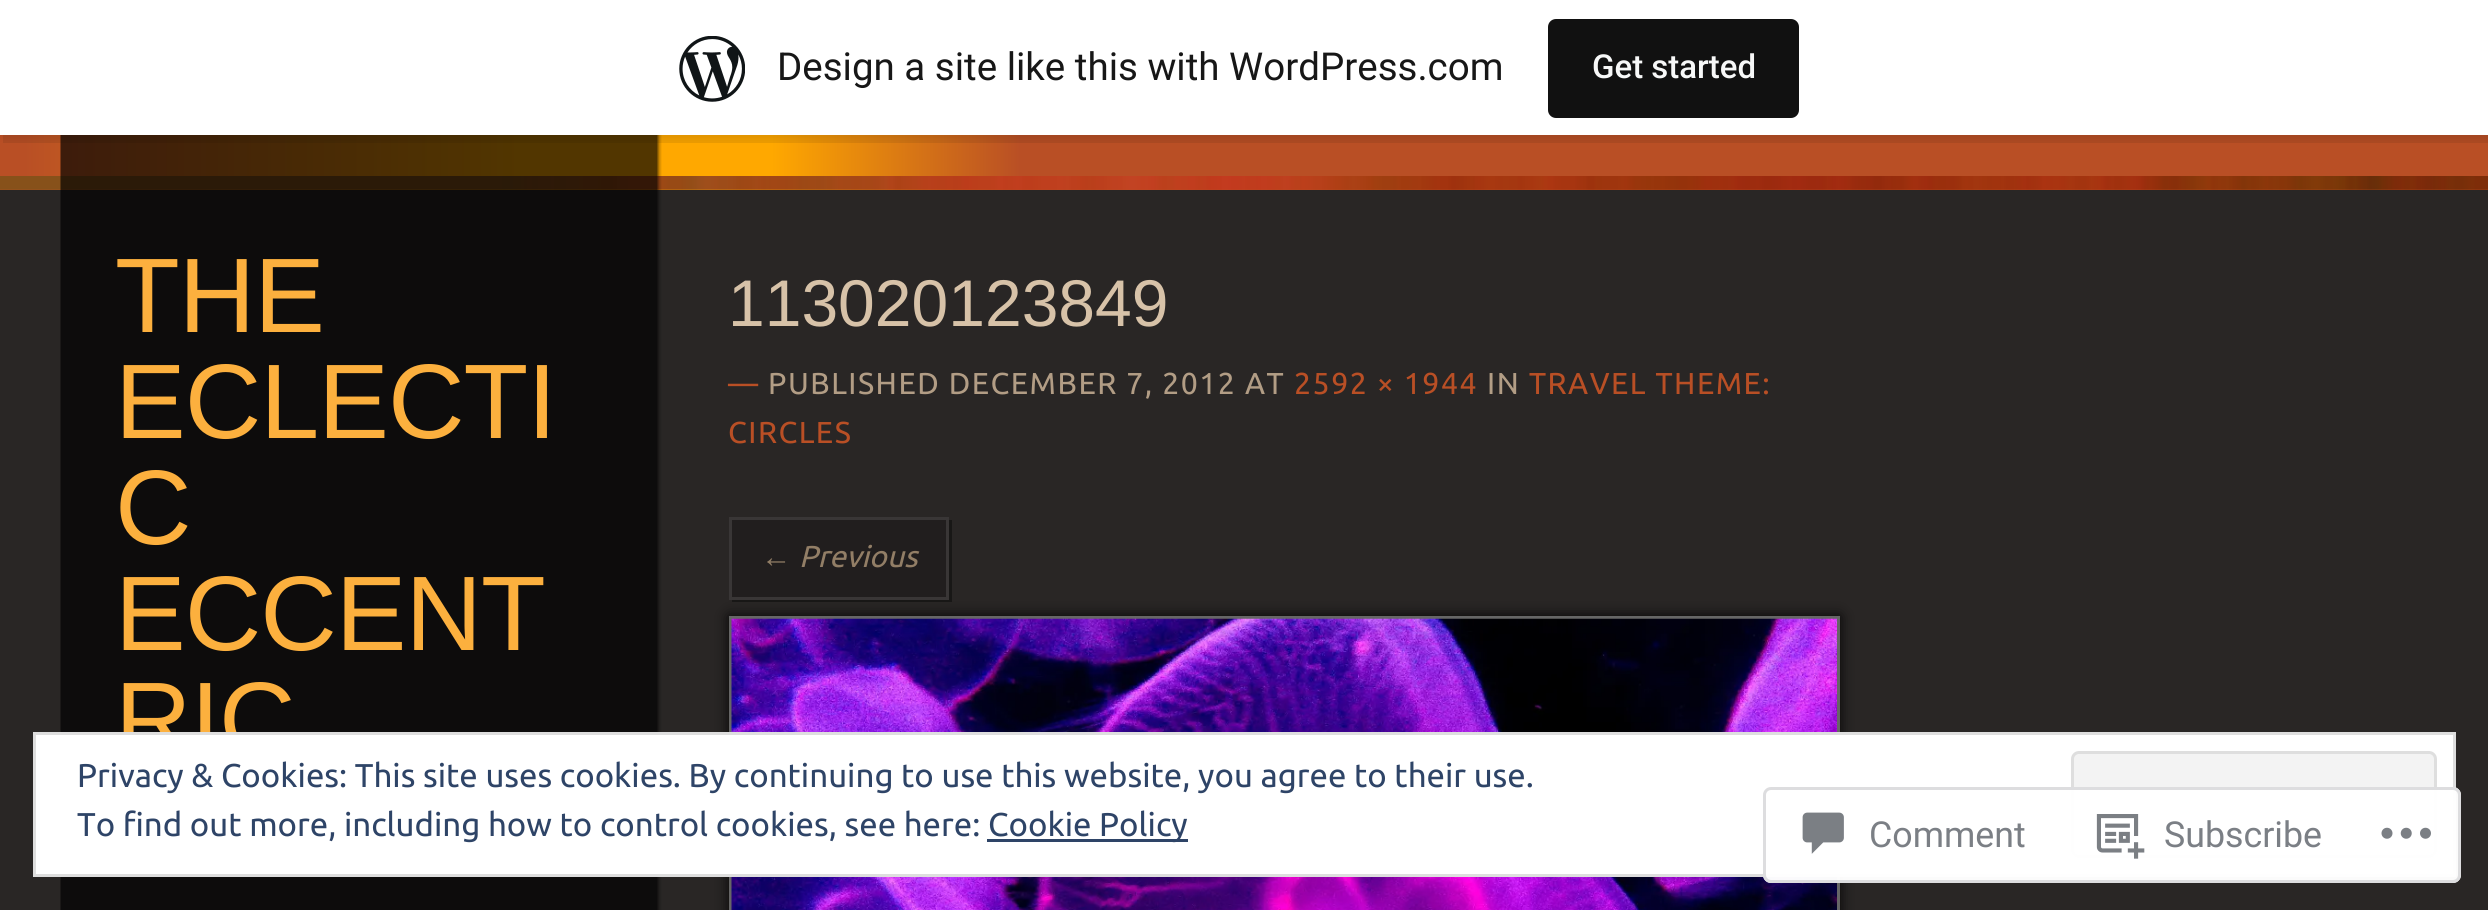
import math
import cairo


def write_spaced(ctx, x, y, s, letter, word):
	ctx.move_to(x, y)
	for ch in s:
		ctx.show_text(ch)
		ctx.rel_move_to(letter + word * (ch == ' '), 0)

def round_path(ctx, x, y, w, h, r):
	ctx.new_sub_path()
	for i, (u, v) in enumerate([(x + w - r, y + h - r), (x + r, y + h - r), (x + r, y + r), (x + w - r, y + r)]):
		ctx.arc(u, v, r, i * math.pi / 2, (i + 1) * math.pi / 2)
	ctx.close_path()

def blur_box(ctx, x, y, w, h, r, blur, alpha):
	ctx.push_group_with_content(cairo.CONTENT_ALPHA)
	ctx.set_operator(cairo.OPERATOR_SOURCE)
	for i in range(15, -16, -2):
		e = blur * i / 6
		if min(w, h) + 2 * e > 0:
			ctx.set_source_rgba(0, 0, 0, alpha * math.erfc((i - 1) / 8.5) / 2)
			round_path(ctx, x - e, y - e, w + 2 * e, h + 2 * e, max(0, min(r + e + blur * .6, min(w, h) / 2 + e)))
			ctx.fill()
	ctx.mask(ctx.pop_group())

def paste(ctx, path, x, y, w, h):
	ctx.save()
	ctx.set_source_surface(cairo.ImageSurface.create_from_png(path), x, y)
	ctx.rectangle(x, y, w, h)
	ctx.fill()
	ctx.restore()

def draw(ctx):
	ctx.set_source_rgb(0.161, 0.149, 0.145)
	ctx.paint()
	gradient = cairo.LinearGradient(0, 162, 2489, 162)
	gradient.add_color_stop_rgba(0.01, 0.725, 0.31, 0.145, 1)
	gradient.add_color_stop_rgba(0.21, 1, 0.659, 0, 1)
	gradient.add_color_stop_rgba(0.31, 1, 0.659, 0, 1)
	gradient.add_color_stop_rgba(0.41, 0.725, 0.31, 0.145, 1)
	ctx.set_source(gradient)
	ctx.rectangle(0, 135, 2488, 55)
	ctx.fill()
	paste(ctx, 'media/2.png', 0, 176, 2488, 14)
	paste(ctx, 'media/3.png', 60, 135, 602, 775)
	ctx.set_source_rgb(0, 0, 0)
	blur_box(ctx, 0, 3, 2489, 135, 0, 3, 0.05)
	ctx.set_source_rgba(0, 0, 0, 0.08)
	ctx.new_path()
	ctx.move_to(3, 135)
	ctx.line_to(3, 143)
	ctx.line_to(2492, 143)
	ctx.line_to(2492, 8)
	ctx.line_to(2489, 8)
	ctx.line_to(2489, 135)
	ctx.close_path()
	ctx.fill()
	ctx.set_source_rgb(1, 1, 1)
	ctx.rectangle(0, 0, 2488, 135)
	ctx.fill()
	paste(ctx, 'media/1.png', 679, 36, 66, 66)
	ctx.select_font_face('Roboto')
	ctx.set_font_size(38.5)
	ctx.set_source_rgb(0.09, 0.09, 0.09)
	ctx.move_to(777, 80)
	ctx.show_text('Design a site like this with WordPress.com')
	ctx.set_source_rgb(0.067, 0.067, 0.067)
	round_path(ctx, 1548, 19, 251, 99, 8)
	ctx.fill()
	ctx.select_font_face('Roboto Medium')
	ctx.set_font_size(33)
	ctx.set_source_rgb(0.965, 0.969, 0.969)
	ctx.move_to(1592, 78)
	ctx.show_text('Get started')
	ctx.select_font_face('Liberation Sans')
	ctx.set_font_size(106)
	ctx.set_source_rgb(0.988, 0.69, 0.243)
	for x, y, s in [
		(115, 332, 'THE'),
		(115, 438, 'ECLECTI'),
		(115, 544, 'C'),
		(115, 650, 'ECCENT'),
		(115, 756, 'RIC'),
	]:
		write_spaced(ctx, x, y, s, -1, 0)
	ctx.set_font_size(66)
	ctx.set_source_rgb(0.843, 0.761, 0.659)
	ctx.move_to(728, 326)
	ctx.show_text('113020123849')
	ctx.select_font_face('Ubuntu')
	ctx.set_font_size(30.25)
	ctx.set_source_rgb(0.725, 0.31, 0.145)
	write_spaced(ctx, 728, 394, '—', 1.5, 0)
	ctx.set_source_rgb(0.698, 0.616, 0.522)
	write_spaced(ctx, 768, 394, 'PUBLISHED DECEMBER 7, 2012 AT', 1.5, 0)
	ctx.set_source_rgb(0.725, 0.31, 0.145)
	write_spaced(ctx, 1294, 394, '2592 × 1944', 1.5, 0)
	ctx.set_source_rgb(0.698, 0.616, 0.522)
	write_spaced(ctx, 1487, 394, 'IN', 1.5, 0)
	ctx.set_source_rgb(0.725, 0.31, 0.145)
	write_spaced(ctx, 1529, 394, 'TRAVEL THEME:', 1.5, 0)
	write_spaced(ctx, 728, 443, 'CIRCLES', 1.5, 0)
	ctx.set_source_rgb(0, 0, 0)
	blur_box(ctx, 729, 616, 1111, 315, 0, 7, 0.9)
	ctx.set_source_rgb(0.094, 0.09, 0.086)
	ctx.new_path()
	ctx.move_to(732, 600)
	ctx.line_to(732, 602)
	ctx.line_to(952, 602)
	ctx.line_to(952, 520)
	ctx.line_to(949, 520)
	ctx.line_to(949, 600)
	ctx.close_path()
	ctx.fill()
	ctx.set_source_rgb(0.129, 0.118, 0.118)
	ctx.rectangle(730.5, 518.5, 217, 80)
	ctx.fill_preserve()
	ctx.set_source_rgb(0.224, 0.212, 0.212)
	ctx.set_line_width(3)
	ctx.stroke()
	ctx.select_font_face('Liberation Sans', cairo.FONT_SLANT_ITALIC)
	ctx.set_source_rgb(0.573, 0.494, 0.4)
	ctx.move_to(761, 567)
	ctx.show_text('←')
	ctx.select_font_face('Ubuntu', cairo.FONT_SLANT_ITALIC)
	ctx.move_to(799, 567)
	ctx.show_text('Previous')
	ctx.rectangle(730.5, 617.5, 1108, 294)
	ctx.set_source_rgb(0.4, 0.4, 0.4)
	ctx.stroke()
	paste(ctx, 'media/4.png', 731, 618, 1106, 292)
	ctx.set_source_rgb(1, 1, 1)
	ctx.rectangle(34.5, 733.5, 2420, 142)
	ctx.fill_preserve()
	ctx.set_source_rgb(0.871, 0.871, 0.871)
	ctx.stroke()
	ctx.select_font_face('Ubuntu')
	ctx.set_font_size(33)
	ctx.set_source_rgb(0.18, 0.267, 0.404)
	ctx.move_to(77, 787)
	ctx.show_text('Privacy & Cookies: This site uses cookies. By continuing to use this website, you agree to their use.')
	ctx.set_source_rgb(0.953, 0.953, 0.953)
	round_path(ctx, 2072.5, 752.5, 363, 104, 6.5)
	ctx.fill_preserve()
	ctx.set_source_rgb(0.871, 0.871, 0.871)
	ctx.stroke()
	ctx.set_source_rgb(0.18, 0.267, 0.404)
	ctx.move_to(77, 836)
	ctx.show_text('To find out more, including how to control cookies, see here:')
	ctx.rectangle(987, 839, 201, 3)
	ctx.fill()
	ctx.move_to(988, 836)
	ctx.show_text('Cookie Policy')
	ctx.set_source_rgba(1, 1, 1, 0.98)
	round_path(ctx, 1763, 787, 698, 96, 8)
	ctx.fill()
	round_path(ctx, 1764.5, 788.5, 695, 93, 6.5)
	ctx.set_source_rgba(0.863, 0.863, 0.871, 0.98)
	ctx.stroke()
	paste(ctx, 'media/5.png', 1802, 812, 42, 42)
	ctx.select_font_face('Roboto')
	ctx.set_font_size(35.75)
	ctx.set_source_rgb(0.482, 0.498, 0.522)
	ctx.move_to(1869, 847)
	ctx.show_text('Comment')
	paste(ctx, 'media/6.png', 2096, 814, 49, 45)
	ctx.move_to(2164, 847)
	ctx.show_text('Subscribe')
	paste(ctx, 'media/7.png', 2381, 827, 50, 12)


surface = cairo.ImageSurface(cairo.FORMAT_RGB24, 2488, 910)
ctx = cairo.Context(surface)
options = cairo.FontOptions()
options.set_hint_metrics(cairo.HINT_METRICS_OFF)
options.set_hint_style(cairo.HINT_STYLE_NONE)
ctx.set_font_options(options)
ctx.set_miter_limit(4)
draw(ctx)
surface.write_to_png('image.png')
